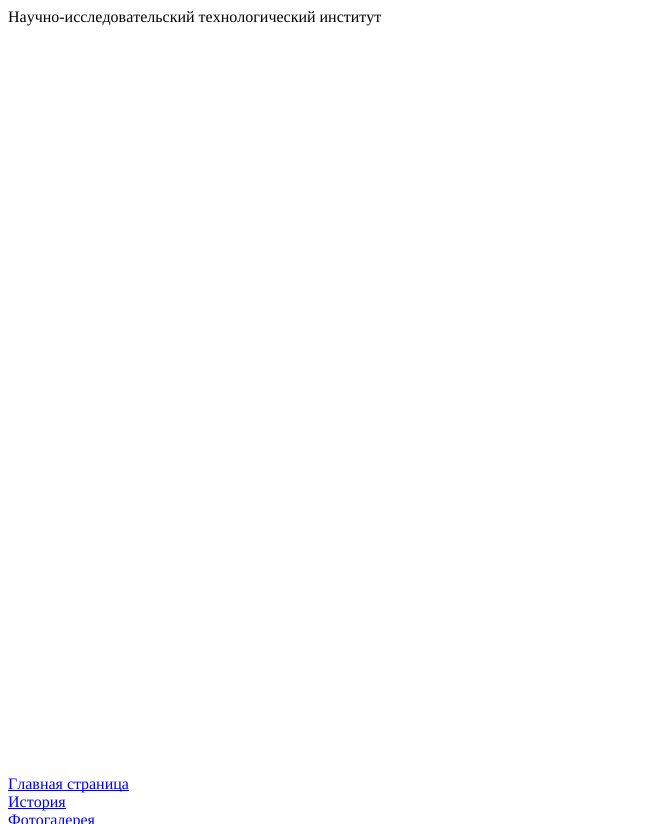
import math
import cairo


def draw(ctx):
	ctx.set_source_rgb(1, 1, 1)
	ctx.paint()
	ctx.select_font_face('Liberation Serif')
	ctx.set_font_size(16)
	ctx.set_source_rgb(0, 0, 0)
	ctx.move_to(8, 22)
	ctx.show_text('Научно-исследовательский технологический институт')
	ctx.set_source_rgb(0, 0, 0.933)
	ctx.rectangle(8, 790, 121, 1)
	ctx.fill()
	ctx.move_to(8, 789)
	ctx.show_text('Главная страница')
	ctx.rectangle(8, 808, 58, 1)
	ctx.fill()
	ctx.move_to(8, 807)
	ctx.show_text('История')
	ctx.move_to(8, 825)
	ctx.show_text('Фотогалерея')


surface = cairo.ImageSurface(cairo.FORMAT_RGB24, 666, 824)
ctx = cairo.Context(surface)
options = cairo.FontOptions()
options.set_hint_metrics(cairo.HINT_METRICS_OFF)
options.set_hint_style(cairo.HINT_STYLE_NONE)
ctx.set_font_options(options)
ctx.set_miter_limit(4)
draw(ctx)
surface.write_to_png('image.png')
